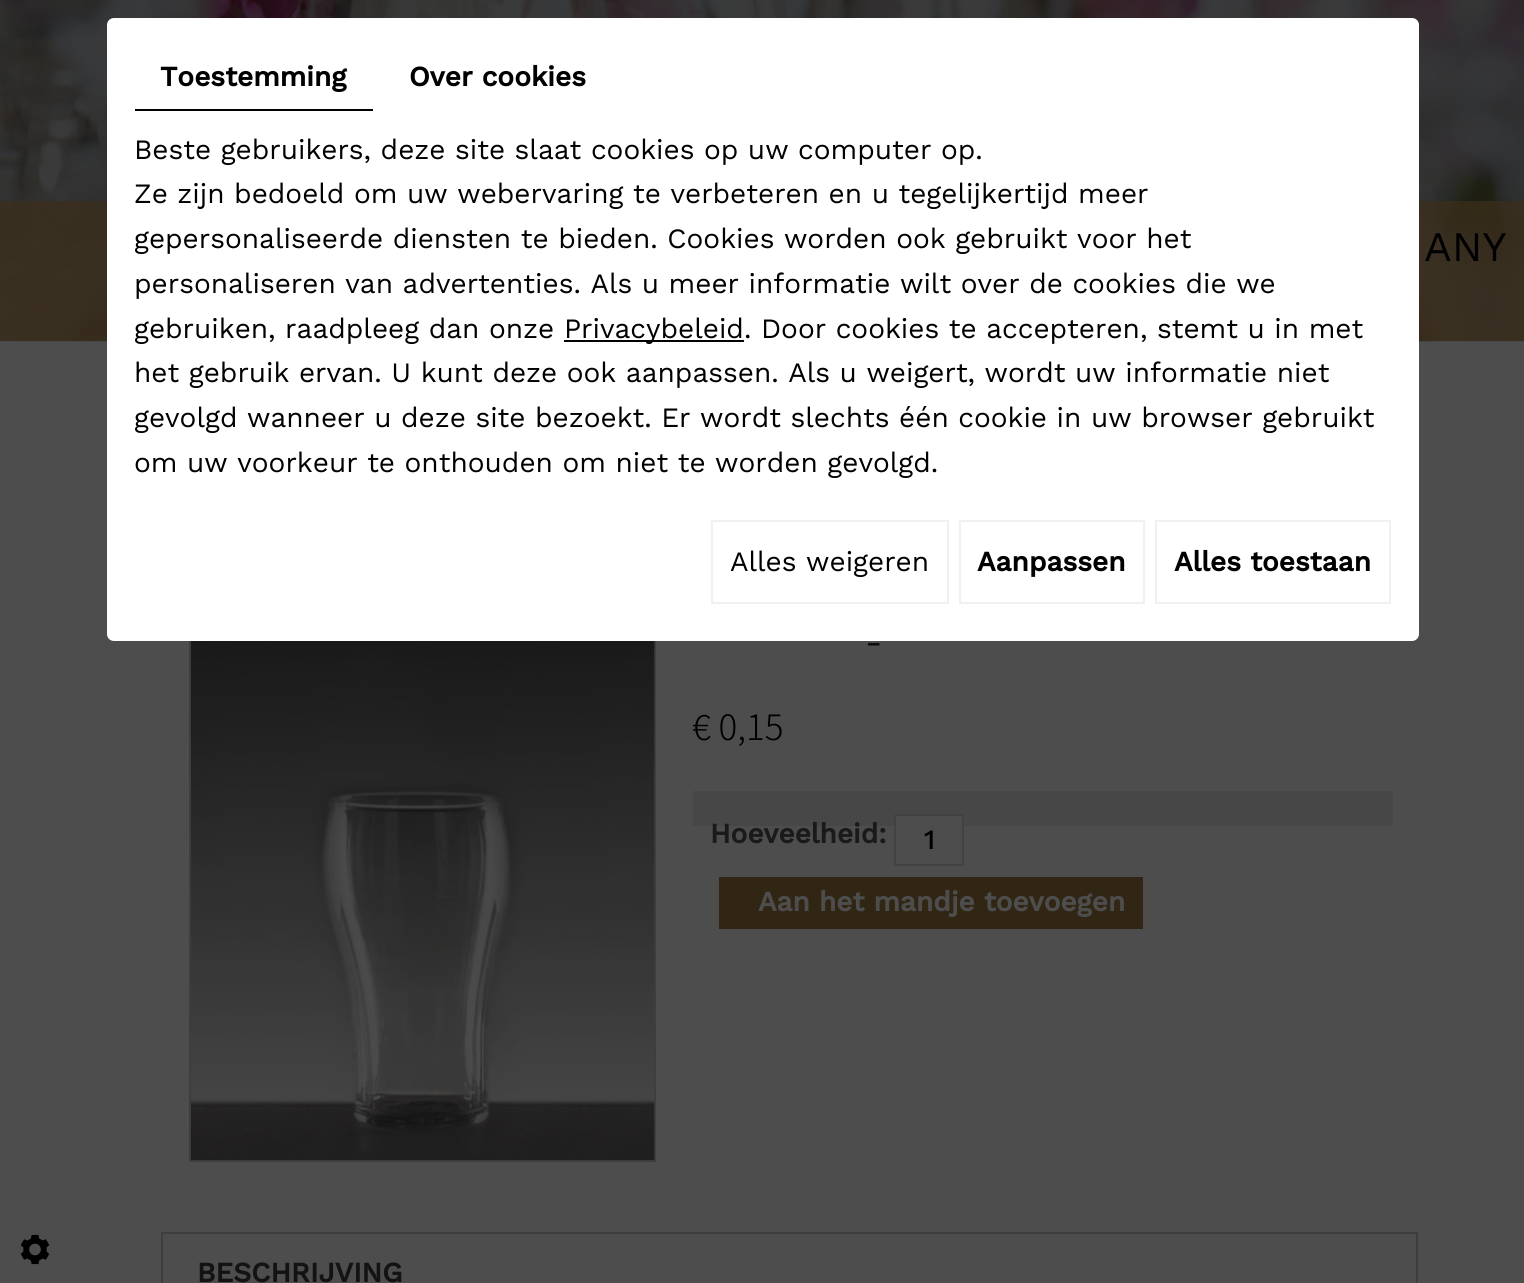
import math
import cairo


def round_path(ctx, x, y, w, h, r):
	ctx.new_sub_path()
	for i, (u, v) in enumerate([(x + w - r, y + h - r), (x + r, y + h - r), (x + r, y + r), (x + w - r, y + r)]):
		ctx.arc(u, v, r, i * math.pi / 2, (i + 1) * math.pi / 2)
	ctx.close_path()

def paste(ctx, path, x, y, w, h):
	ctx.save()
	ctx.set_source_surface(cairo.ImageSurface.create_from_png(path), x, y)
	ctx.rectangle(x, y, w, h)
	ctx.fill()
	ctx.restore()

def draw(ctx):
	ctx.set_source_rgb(0.302, 0.302, 0.302)
	ctx.paint()
	paste(ctx, 'media/2.png', 0, 0, 1524, 342)
	ctx.set_source_rgba(0.235, 0.184, 0.106, 0.7)
	ctx.rectangle(0, 201, 1524, 140)
	ctx.fill()
	ctx.rectangle(190, 600, 465, 561)
	ctx.set_source_rgb(0.247, 0.243, 0.247)
	ctx.stroke()
	ctx.set_source_rgb(1, 1, 1)
	round_path(ctx, 107, 18, 1312, 623, 7)
	ctx.fill()
	ctx.set_source_rgb(0, 0, 0)
	ctx.rectangle(135, 109, 238, 2)
	ctx.fill()
	ctx.select_font_face('Work Sans', cairo.FONT_SLANT_NORMAL, cairo.FONT_WEIGHT_BOLD)
	ctx.set_font_size(28)
	ctx.move_to(160, 86)
	ctx.show_text('Toestemming')
	ctx.move_to(409, 86)
	ctx.show_text('Over cookies')
	ctx.select_font_face('Work Sans')
	for x, y, s in [
		(134, 159, 'Beste gebruikers, deze site slaat cookies op uw computer op.'),
		(134, 203, 'Ze zijn bedoeld om uw webervaring te verbeteren en u tegelijkertijd meer'),
		(134, 248, 'gepersonaliseerde diensten te bieden. Cookies worden ook gebruikt voor het'),
		(134, 293, 'personaliseren van advertenties. Als u meer informatie wilt over de cookies die we'),
		(134, 338, 'gebruiken, raadpleeg dan onze'),
	]:
		ctx.move_to(x, y)
		ctx.show_text(s)
	ctx.rectangle(564, 340, 180, 2)
	ctx.fill()
	for x, y, s in [
		(564, 338, 'Privacybeleid. Door cookies te accepteren, stemt u in met'),
		(134, 382, 'het gebruik ervan. U kunt deze ook aanpassen. Als u weigert, wordt uw informatie niet'),
		(134, 427, 'gevolgd wanneer u deze site bezoekt. Er wordt slechts één cookie in uw browser gebruikt'),
		(134, 472, 'om uw voorkeur te onthouden om niet te worden gevolgd.'),
	]:
		ctx.move_to(x, y)
		ctx.show_text(s)
	ctx.rectangle(712, 521, 236, 82)
	ctx.set_source_rgb(0.941, 0.941, 0.941)
	ctx.stroke()
	ctx.set_source_rgb(0, 0, 0)
	ctx.move_to(730, 571)
	ctx.show_text('Alles weigeren')
	ctx.rectangle(960, 521, 184, 82)
	ctx.set_source_rgb(0.941, 0.941, 0.941)
	ctx.stroke()
	ctx.select_font_face('Work Sans', cairo.FONT_SLANT_NORMAL, cairo.FONT_WEIGHT_BOLD)
	ctx.set_source_rgb(0, 0, 0)
	ctx.move_to(977, 571)
	ctx.show_text('Aanpassen')
	ctx.rectangle(1156, 521, 234, 82)
	ctx.set_source_rgb(0.941, 0.941, 0.941)
	ctx.stroke()
	ctx.set_source_rgb(0, 0, 0)
	ctx.move_to(1174, 571)
	ctx.show_text('Alles toestaan')
	paste(ctx, 'media/1.png', 20, 1234, 30, 31)
	ctx.select_font_face('Work Sans')
	ctx.set_font_size(42)
	ctx.move_to(1424, 261)
	ctx.show_text('ANY')
	paste(ctx, 'media/3.png', 190, 641, 465, 520)
	ctx.select_font_face('Noto Sans TC Thin')
	ctx.set_font_size(46)
	ctx.set_source_rgb(0.027, 0.027, 0.027)
	ctx.move_to(866, 657)
	ctx.show_text('-')
	ctx.set_font_size(35)
	ctx.set_source_rgb(0, 0, 0)
	ctx.move_to(692, 740)
	ctx.show_text('€ 0,15')
	ctx.set_source_rgb(0.278, 0.278, 0.278)
	ctx.rectangle(693, 791, 700, 35)
	ctx.fill()
	ctx.select_font_face('Work Sans', cairo.FONT_SLANT_NORMAL, cairo.FONT_WEIGHT_BOLD)
	ctx.set_font_size(28)
	ctx.set_source_rgb(0.102, 0.102, 0.102)
	ctx.move_to(710, 843)
	ctx.show_text('Hoeveelheid:')
	ctx.set_source_rgb(0.302, 0.302, 0.302)
	ctx.rectangle(896, 816, 66, 10)
	ctx.fill()
	ctx.rectangle(895, 815, 68, 50)
	ctx.set_source_rgb(0.259, 0.259, 0.263)
	ctx.stroke()
	ctx.select_font_face('Work Sans Medium')
	ctx.set_source_rgb(0, 0, 0)
	ctx.move_to(924, 849)
	ctx.show_text('1')
	ctx.set_source_rgb(0.192, 0.145, 0.075)
	ctx.rectangle(719, 877, 424, 52)
	ctx.fill()
	ctx.select_font_face('Work Sans', cairo.FONT_SLANT_NORMAL, cairo.FONT_WEIGHT_BOLD)
	ctx.set_source_rgb(0.302, 0.302, 0.302)
	ctx.move_to(758, 911)
	ctx.show_text('Aan het mandje toevoegen')
	ctx.set_source_rgb(0.247, 0.243, 0.247)
	ctx.rectangle(161, 1232, 1257, 2)
	ctx.rectangle(1416, 1232, 2, 51)
	ctx.rectangle(161, 1232, 2, 51)
	ctx.fill()
	ctx.set_source_rgb(0.078, 0.078, 0.078)
	ctx.move_to(197, 1282)
	ctx.show_text('BESCHRIJVING')


surface = cairo.ImageSurface(cairo.FORMAT_RGB24, 1524, 1283)
ctx = cairo.Context(surface)
options = cairo.FontOptions()
options.set_hint_metrics(cairo.HINT_METRICS_OFF)
options.set_hint_style(cairo.HINT_STYLE_NONE)
ctx.set_font_options(options)
ctx.set_miter_limit(4)
draw(ctx)
surface.write_to_png('image.png')
